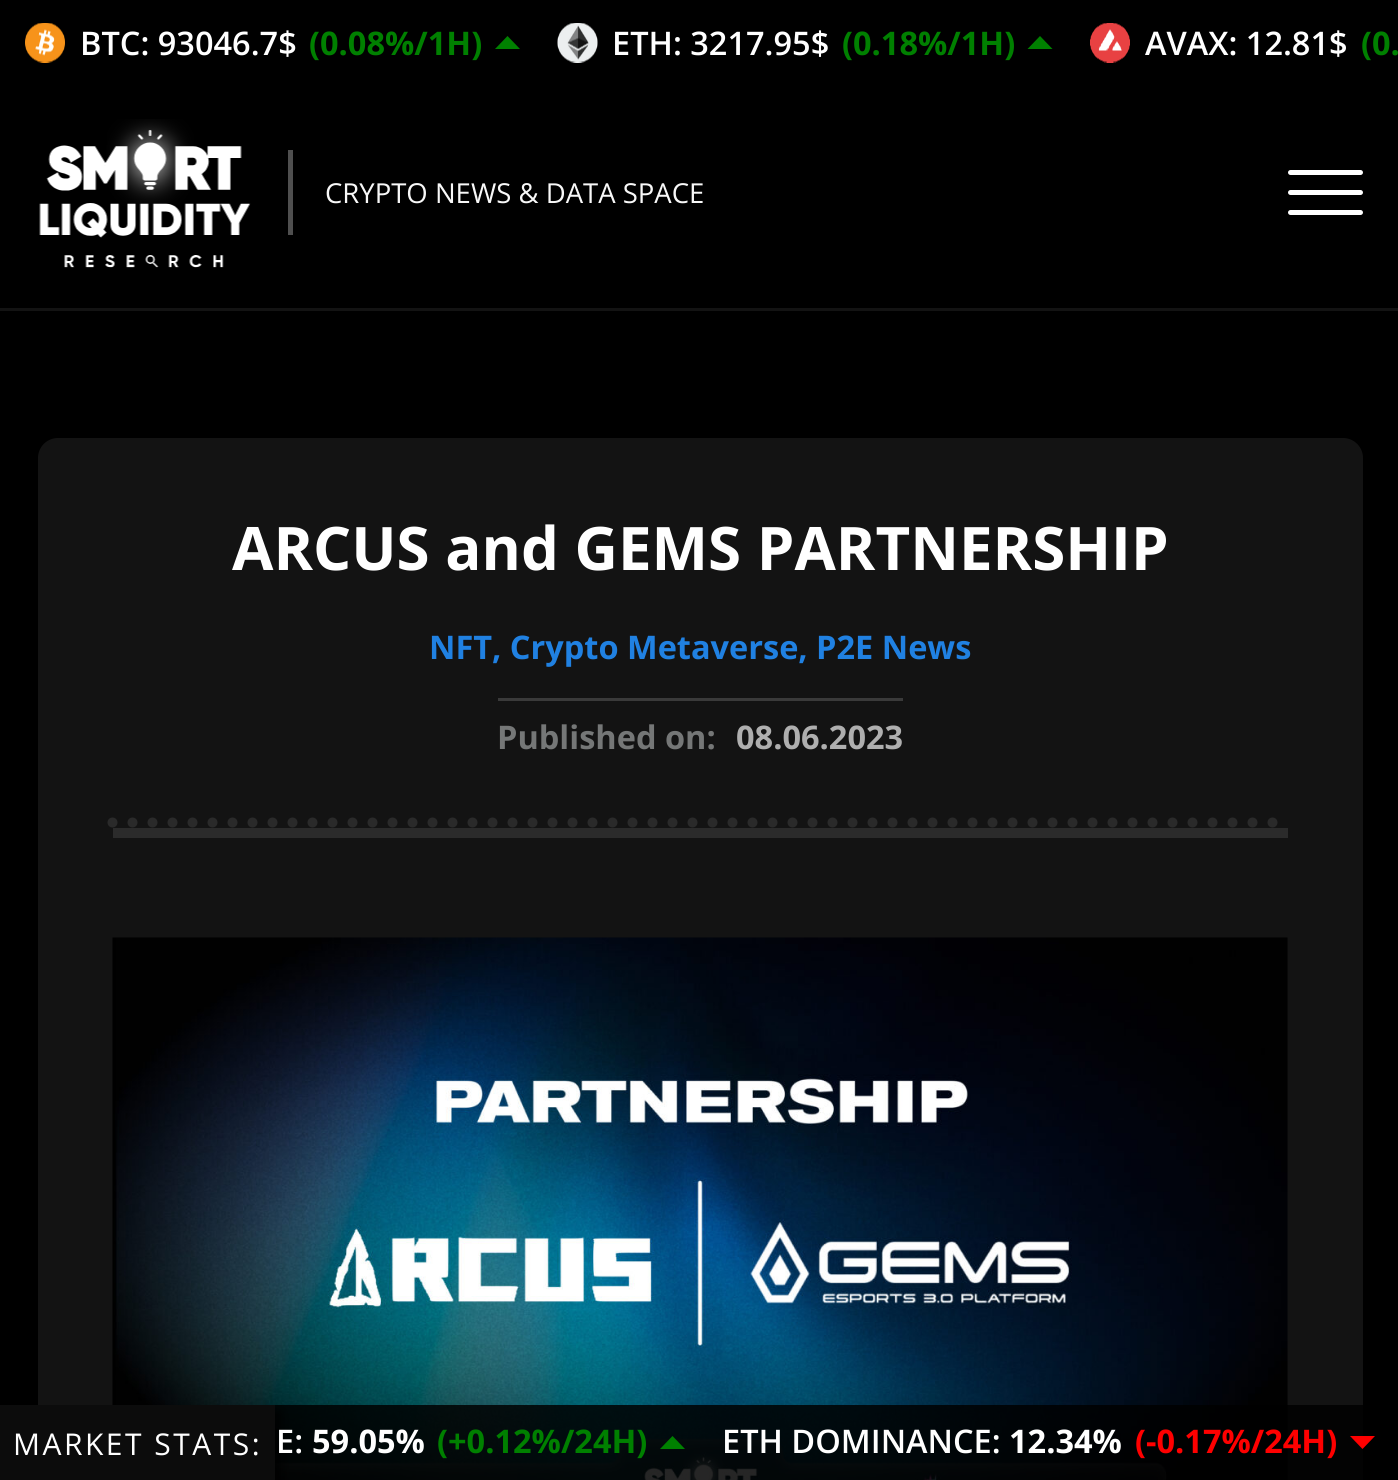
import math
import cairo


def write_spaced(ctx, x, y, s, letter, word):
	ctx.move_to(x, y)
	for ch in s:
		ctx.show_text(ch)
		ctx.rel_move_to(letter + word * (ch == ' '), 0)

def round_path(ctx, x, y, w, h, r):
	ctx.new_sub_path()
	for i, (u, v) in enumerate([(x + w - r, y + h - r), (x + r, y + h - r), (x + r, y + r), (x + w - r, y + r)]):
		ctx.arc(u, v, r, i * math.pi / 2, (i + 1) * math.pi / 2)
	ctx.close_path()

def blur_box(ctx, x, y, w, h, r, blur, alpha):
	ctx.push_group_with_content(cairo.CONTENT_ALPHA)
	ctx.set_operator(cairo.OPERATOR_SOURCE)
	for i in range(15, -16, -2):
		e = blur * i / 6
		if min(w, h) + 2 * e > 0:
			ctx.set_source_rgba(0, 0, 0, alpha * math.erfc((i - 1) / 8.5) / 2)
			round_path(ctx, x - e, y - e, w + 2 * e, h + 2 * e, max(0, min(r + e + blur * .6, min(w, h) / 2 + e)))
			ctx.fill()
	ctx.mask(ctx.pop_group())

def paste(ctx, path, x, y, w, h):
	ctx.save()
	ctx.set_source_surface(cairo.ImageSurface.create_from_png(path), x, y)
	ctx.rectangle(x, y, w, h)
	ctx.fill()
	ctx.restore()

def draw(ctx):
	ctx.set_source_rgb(0, 0, 0)
	ctx.paint()
	paste(ctx, 'media/1.png', 25, 23, 40, 40)
	ctx.select_font_face('Open Sans SemiBold')
	ctx.set_font_size(32.5)
	ctx.set_source_rgb(1, 1, 1)
	ctx.move_to(80, 55)
	ctx.show_text('BTC: 93046.7$')
	ctx.select_font_face('Open Sans', cairo.FONT_SLANT_NORMAL, cairo.FONT_WEIGHT_BOLD)
	ctx.set_source_rgb(0, 0.502, 0)
	ctx.move_to(309, 55)
	ctx.show_text('(0.08%/1H)')
	ctx.new_path()
	ctx.move_to(520, 49)
	ctx.line_to(495, 49)
	ctx.line_to(507.5, 36)
	ctx.close_path()
	ctx.fill()
	paste(ctx, 'media/2.png', 557, 23, 41, 40)
	ctx.select_font_face('Open Sans SemiBold')
	ctx.set_source_rgb(1, 1, 1)
	ctx.move_to(612, 55)
	ctx.show_text('ETH: 3217.95$')
	ctx.select_font_face('Open Sans', cairo.FONT_SLANT_NORMAL, cairo.FONT_WEIGHT_BOLD)
	ctx.set_source_rgb(0, 0.502, 0)
	ctx.move_to(842, 55)
	ctx.show_text('(0.18%/1H)')
	ctx.new_path()
	ctx.move_to(1052.5, 49)
	ctx.line_to(1027.5, 49)
	ctx.line_to(1040, 36)
	ctx.close_path()
	ctx.fill()
	paste(ctx, 'media/3.png', 1090, 23, 40, 40)
	ctx.select_font_face('Open Sans SemiBold')
	ctx.set_source_rgb(1, 1, 1)
	ctx.move_to(1145, 55)
	ctx.show_text('AVAX: 12.81$')
	ctx.select_font_face('Open Sans', cairo.FONT_SLANT_NORMAL, cairo.FONT_WEIGHT_BOLD)
	ctx.set_source_rgb(0, 0.502, 0)
	ctx.move_to(1361, 55)
	ctx.show_text('(0.')
	ctx.set_source_rgb(0.078, 0.078, 0.078)
	ctx.rectangle(0, 308, 1398, 3)
	ctx.fill()
	paste(ctx, 'media/4.png', 39, 119, 212, 149)
	ctx.set_source_rgb(0.31, 0.31, 0.31)
	ctx.rectangle(288, 150, 5, 85)
	ctx.fill()
	ctx.select_font_face('Open Sans')
	ctx.set_font_size(27.5)
	ctx.set_source_rgb(0.969, 0.969, 0.969)
	ctx.move_to(325, 203)
	ctx.show_text('CRYPTO NEWS & DATA SPACE')
	ctx.set_source_rgb(1, 1, 1)
	round_path(ctx, 1288, 170, 75, 5, 2.5)
	ctx.fill()
	round_path(ctx, 1288, 190, 75, 5, 2.5)
	ctx.fill()
	round_path(ctx, 1288, 210, 75, 5, 2.5)
	ctx.fill()
	ctx.set_source_rgb(0.075, 0.075, 0.075)
	round_path(ctx, 38, 438, 1325, 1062, 20)
	ctx.fill()
	ctx.set_source_rgb(0.169, 0.169, 0.169)
	ctx.rectangle(113, 828, 1175, 10)
	ctx.fill()
	ctx.set_source_rgb(0.227, 0.227, 0.227)
	ctx.rectangle(498, 698, 405, 3)
	ctx.fill()
	ctx.select_font_face('Open Sans', cairo.FONT_SLANT_NORMAL, cairo.FONT_WEIGHT_BOLD)
	ctx.set_font_size(60)
	ctx.set_source_rgb(1, 1, 1)
	ctx.move_to(232, 570)
	ctx.show_text('ARCUS and GEMS PARTNERSHIP')
	ctx.set_font_size(32.5)
	ctx.set_source_rgb(0.125, 0.506, 0.886)
	ctx.move_to(429, 659)
	ctx.show_text('NFT, Crypto Metaverse, P2E News')
	ctx.set_source_rgb(0.459, 0.467, 0.467)
	ctx.move_to(497, 749)
	ctx.show_text('Published on:')
	ctx.set_source_rgb(0.686, 0.686, 0.686)
	ctx.move_to(736, 749)
	ctx.show_text('08.06.2023')
	ctx.new_path()
	ctx.move_to(112.5, 822.5)
	ctx.line_to(1287.5, 822.5)
	ctx.set_source_rgba(1, 1, 1, 0.1)
	ctx.set_line_width(10)
	ctx.set_line_cap(cairo.LINE_CAP_ROUND)
	ctx.set_dash([0, 20])
	ctx.stroke()
	paste(ctx, 'media/5.png', 112, 937, 1176, 543)
	ctx.set_source_rgba(0, 0, 0, 0.85)
	ctx.rectangle(275, 1405, 1088, 75)
	ctx.fill()
	ctx.save()
	ctx.rectangle(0, 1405, 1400, 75)
	ctx.clip()
	ctx.set_source_rgb(0, 0, 0)
	blur_box(ctx, -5, 1413, 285, 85, 0, 6, 1)
	ctx.restore()
	ctx.set_source_rgb(0.047, 0.047, 0.047)
	ctx.rectangle(0, 1405, 275, 75)
	ctx.fill()
	ctx.select_font_face('Open Sans')
	ctx.set_font_size(30)
	ctx.set_source_rgb(1, 1, 1)
	write_spaced(ctx, 13, 1455, 'MARKET STATS:', 2.5, 0)
	ctx.select_font_face('Open Sans SemiBold')
	ctx.set_font_size(32.5)
	ctx.move_to(276, 1453)
	ctx.show_text('E:')
	ctx.select_font_face('Open Sans', cairo.FONT_SLANT_NORMAL, cairo.FONT_WEIGHT_BOLD)
	ctx.move_to(312, 1453)
	ctx.show_text('59.05%')
	ctx.set_source_rgb(0, 0.502, 0)
	ctx.move_to(437, 1453)
	ctx.show_text('(+0.12%/24H)')
	ctx.new_path()
	ctx.move_to(685, 1449)
	ctx.line_to(660, 1449)
	ctx.line_to(672.5, 1436)
	ctx.close_path()
	ctx.fill()
	ctx.select_font_face('Open Sans SemiBold')
	ctx.set_source_rgb(1, 1, 1)
	ctx.move_to(722, 1453)
	ctx.show_text('ETH DOMINANCE:')
	ctx.select_font_face('Open Sans', cairo.FONT_SLANT_NORMAL, cairo.FONT_WEIGHT_BOLD)
	ctx.move_to(1009, 1453)
	ctx.show_text('12.34%')
	ctx.set_source_rgb(1, 0, 0)
	ctx.move_to(1135, 1453)
	ctx.show_text('(-0.17%/24H)')
	ctx.new_path()
	ctx.move_to(1350, 1436)
	ctx.line_to(1375, 1436)
	ctx.line_to(1362.5, 1449)
	ctx.close_path()
	ctx.fill()


surface = cairo.ImageSurface(cairo.FORMAT_RGB24, 1398, 1480)
ctx = cairo.Context(surface)
options = cairo.FontOptions()
options.set_hint_metrics(cairo.HINT_METRICS_OFF)
options.set_hint_style(cairo.HINT_STYLE_NONE)
ctx.set_font_options(options)
ctx.set_miter_limit(4)
draw(ctx)
surface.write_to_png('image.png')
